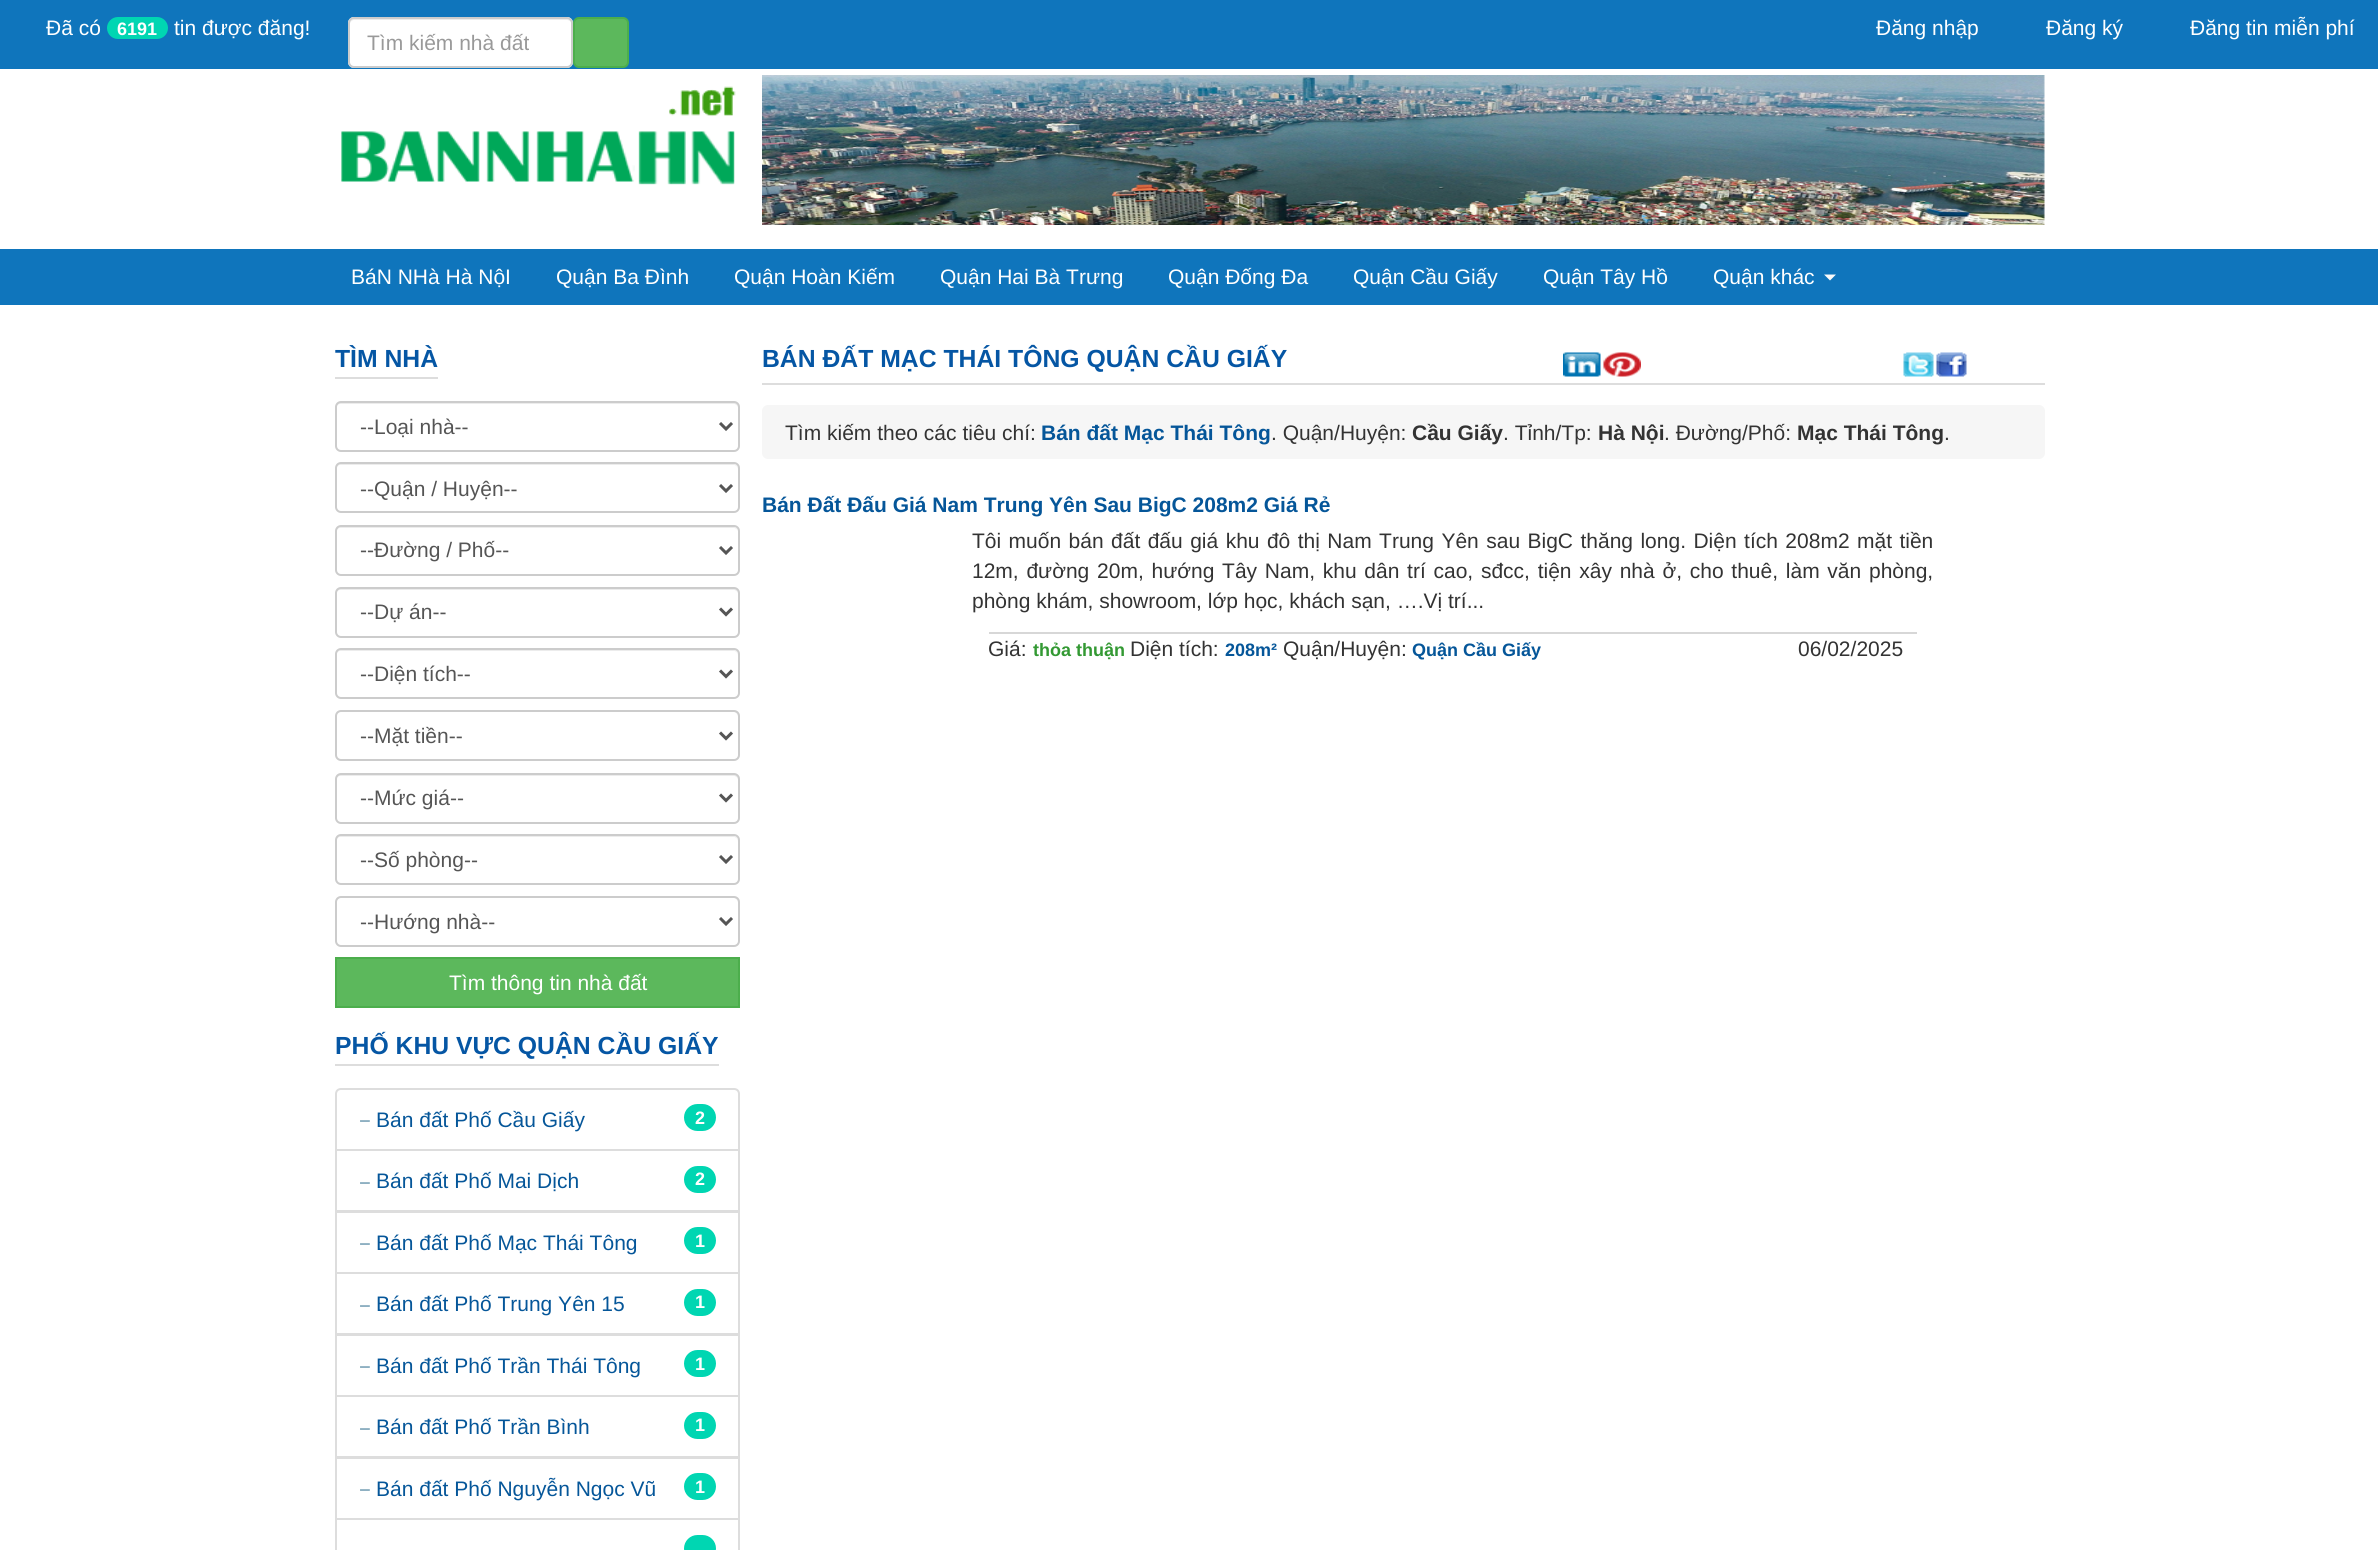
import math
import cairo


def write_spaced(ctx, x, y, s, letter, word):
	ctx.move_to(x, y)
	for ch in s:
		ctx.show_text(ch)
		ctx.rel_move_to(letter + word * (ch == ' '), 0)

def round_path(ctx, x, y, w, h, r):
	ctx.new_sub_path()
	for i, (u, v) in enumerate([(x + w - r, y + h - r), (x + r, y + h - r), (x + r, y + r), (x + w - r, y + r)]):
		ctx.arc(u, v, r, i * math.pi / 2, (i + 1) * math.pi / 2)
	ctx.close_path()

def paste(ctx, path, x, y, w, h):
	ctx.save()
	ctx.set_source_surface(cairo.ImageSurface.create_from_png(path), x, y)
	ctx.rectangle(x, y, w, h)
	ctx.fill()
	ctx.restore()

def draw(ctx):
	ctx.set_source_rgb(1, 1, 1)
	ctx.paint()
	ctx.set_source_rgb(0.059, 0.459, 0.737)
	ctx.rectangle(0, 0, 2378, 69)
	ctx.fill()
	ctx.select_font_face('Liberation Sans')
	ctx.set_font_size(21)
	ctx.set_source_rgb(1, 1, 1)
	ctx.move_to(46, 35)
	ctx.show_text('Đã có')
	ctx.set_source_rgb(0, 0.839, 0.698)
	round_path(ctx, 107, 17, 61, 22, 11)
	ctx.fill()
	ctx.select_font_face('Liberation Sans', cairo.FONT_SLANT_NORMAL, cairo.FONT_WEIGHT_BOLD)
	ctx.set_font_size(18)
	ctx.set_source_rgb(1, 1, 1)
	ctx.move_to(117, 35)
	ctx.show_text('6191')
	ctx.select_font_face('Liberation Sans')
	ctx.set_font_size(21)
	ctx.move_to(174, 35)
	ctx.show_text('tin được đăng!')
	round_path(ctx, 348, 17, 225, 51, 6)
	ctx.fill()
	ctx.set_source_rgb(0.925, 0.925, 0.925)
	ctx.new_path()
	ctx.move_to(354, 20)
	ctx.line_to(567, 20)
	ctx.curve_to(569, 20, 572, 22, 572, 24)
	ctx.line_to(572, 23)
	ctx.curve_to(572, 20, 570, 18, 567, 18)
	ctx.line_to(355, 18)
	ctx.curve_to(352, 18, 350, 20, 350, 23)
	ctx.line_to(350, 24)
	ctx.curve_to(350, 22, 352, 20, 354, 20)
	ctx.close_path()
	ctx.fill()
	round_path(ctx, 349, 18, 223, 49, 5)
	ctx.set_source_rgb(0.8, 0.8, 0.8)
	ctx.stroke()
	ctx.set_source_rgb(0.6, 0.6, 0.6)
	ctx.move_to(367, 50)
	ctx.show_text('Tìm kiếm nhà đất')
	ctx.set_source_rgb(0.361, 0.722, 0.361)
	round_path(ctx, 574, 18, 54, 49, 5)
	ctx.fill_preserve()
	ctx.set_source_rgb(0.298, 0.682, 0.298)
	ctx.stroke()
	ctx.set_source_rgb(1, 1, 1)
	for x, y, s in [
		(1876, 35, 'Đăng nhập'),
		(2046, 35, 'Đăng ký'),
		(2190, 35, 'Đăng tin miễn phí'),
	]:
		ctx.move_to(x, y)
		ctx.show_text(s)
	paste(ctx, 'media/1.png', 341, 86, 395, 99)
	paste(ctx, 'media/2.png', 762, 75, 1283, 150)
	ctx.set_source_rgb(0.059, 0.459, 0.737)
	ctx.rectangle(0, 249, 2378, 56)
	ctx.fill()
	ctx.set_source_rgb(1, 1, 1)
	for x, y, s in [
		(351, 284, 'BáN NHà Hà NộI'),
		(556, 284, 'Quận Ba Đình'),
		(734, 284, 'Quận Hoàn Kiếm'),
		(940, 284, 'Quận Hai Bà Trưng'),
		(1168, 284, 'Quận Đống Đa'),
		(1353, 284, 'Quận Cầu Giấy'),
		(1543, 284, 'Quận Tây Hồ'),
		(1713, 284, 'Quận khác'),
	]:
		ctx.move_to(x, y)
		ctx.show_text(s)
	ctx.set_source_rgb(0.98, 0.98, 0.98)
	ctx.new_path()
	ctx.move_to(1824, 274.5)
	ctx.line_to(1836, 274.5)
	ctx.line_to(1830, 280.5)
	ctx.close_path()
	ctx.fill()
	ctx.set_source_rgb(0.867, 0.867, 0.867)
	ctx.rectangle(335, 377, 103, 2)
	ctx.fill()
	ctx.select_font_face('Liberation Sans', cairo.FONT_SLANT_NORMAL, cairo.FONT_WEIGHT_BOLD)
	ctx.set_font_size(24.75)
	ctx.set_source_rgb(0.02, 0.337, 0.643)
	ctx.move_to(335, 367)
	ctx.show_text('TÌM NHÀ')
	ctx.set_source_rgb(0.925, 0.925, 0.925)
	ctx.new_path()
	ctx.move_to(340, 404)
	ctx.line_to(734, 404)
	ctx.curve_to(736, 404, 738, 406, 738, 408)
	ctx.line_to(738, 407)
	ctx.curve_to(738, 404, 736, 402, 733, 402)
	ctx.line_to(341, 402)
	ctx.curve_to(338, 402, 336, 404, 336, 407)
	ctx.line_to(336, 408)
	ctx.curve_to(336, 406, 338, 404, 340, 404)
	ctx.close_path()
	ctx.fill()
	round_path(ctx, 336, 402, 403, 49, 5)
	ctx.set_source_rgb(0.8, 0.8, 0.8)
	ctx.stroke()
	ctx.new_path()
	ctx.move_to(720, 423)
	ctx.line_to(726, 429)
	ctx.line_to(732, 423)
	ctx.set_source_rgb(0.333, 0.333, 0.333)
	ctx.set_line_width(3)
	ctx.stroke()
	ctx.select_font_face('Liberation Sans')
	ctx.set_font_size(21)
	ctx.move_to(360, 434)
	ctx.show_text('--Loại nhà--')
	ctx.set_source_rgb(0.925, 0.925, 0.925)
	ctx.new_path()
	ctx.move_to(340, 465)
	ctx.line_to(734, 465)
	ctx.curve_to(736, 465, 738, 467, 738, 470)
	ctx.line_to(738, 469)
	ctx.curve_to(738, 466, 736, 464, 733, 464)
	ctx.line_to(341, 464)
	ctx.curve_to(338, 464, 336, 466, 336, 469)
	ctx.line_to(336, 470)
	ctx.curve_to(336, 467, 338, 465, 340, 465)
	ctx.close_path()
	ctx.fill()
	round_path(ctx, 336, 463, 403, 49, 5)
	ctx.set_source_rgb(0.8, 0.8, 0.8)
	ctx.set_line_width(2)
	ctx.stroke()
	ctx.new_path()
	ctx.move_to(720, 485)
	ctx.line_to(726, 491)
	ctx.line_to(732, 485)
	ctx.set_source_rgb(0.333, 0.333, 0.333)
	ctx.set_line_width(3)
	ctx.stroke()
	ctx.move_to(360, 496)
	ctx.show_text('--Quận / Huyện--')
	ctx.set_source_rgb(0.925, 0.925, 0.925)
	ctx.new_path()
	ctx.move_to(340, 528)
	ctx.line_to(734, 528)
	ctx.curve_to(736, 528, 738, 530, 738, 532)
	ctx.curve_to(738, 529, 736, 527, 733, 527)
	ctx.line_to(341, 527)
	ctx.curve_to(338, 527, 336, 529, 336, 532)
	ctx.curve_to(336, 530, 338, 528, 340, 528)
	ctx.close_path()
	ctx.fill()
	round_path(ctx, 336, 526, 403, 49, 5)
	ctx.set_source_rgb(0.8, 0.8, 0.8)
	ctx.set_line_width(2)
	ctx.stroke()
	ctx.new_path()
	ctx.move_to(720, 547)
	ctx.line_to(726, 553)
	ctx.line_to(732, 547)
	ctx.set_source_rgb(0.333, 0.333, 0.333)
	ctx.set_line_width(3)
	ctx.stroke()
	ctx.move_to(360, 557)
	ctx.show_text('--Đường / Phố--')
	ctx.set_source_rgb(0.925, 0.925, 0.925)
	ctx.new_path()
	ctx.move_to(340, 590)
	ctx.line_to(734, 590)
	ctx.curve_to(736, 590, 738, 592, 738, 594)
	ctx.line_to(738, 593)
	ctx.curve_to(738, 590, 736, 588, 733, 588)
	ctx.line_to(341, 588)
	ctx.curve_to(338, 588, 336, 590, 336, 593)
	ctx.line_to(336, 594)
	ctx.curve_to(336, 592, 338, 590, 340, 590)
	ctx.close_path()
	ctx.fill()
	round_path(ctx, 336, 588, 403, 49, 5)
	ctx.set_source_rgb(0.8, 0.8, 0.8)
	ctx.set_line_width(2)
	ctx.stroke()
	ctx.new_path()
	ctx.move_to(720, 608.5)
	ctx.line_to(726, 614.5)
	ctx.line_to(732, 608.5)
	ctx.set_source_rgb(0.333, 0.333, 0.333)
	ctx.set_line_width(3)
	ctx.stroke()
	ctx.move_to(360, 619)
	ctx.show_text('--Dự án--')
	ctx.set_source_rgb(0.925, 0.925, 0.925)
	ctx.new_path()
	ctx.move_to(340, 651)
	ctx.line_to(734, 651)
	ctx.curve_to(736, 651, 738, 653, 738, 656)
	ctx.line_to(738, 655)
	ctx.curve_to(738, 652, 736, 650, 733, 650)
	ctx.line_to(341, 650)
	ctx.curve_to(338, 650, 336, 652, 336, 655)
	ctx.line_to(336, 656)
	ctx.curve_to(336, 653, 338, 651, 340, 651)
	ctx.close_path()
	ctx.fill()
	round_path(ctx, 336, 649, 403, 49, 5)
	ctx.set_source_rgb(0.8, 0.8, 0.8)
	ctx.set_line_width(2)
	ctx.stroke()
	ctx.new_path()
	ctx.move_to(720, 670.5)
	ctx.line_to(726, 676.5)
	ctx.line_to(732, 670.5)
	ctx.set_source_rgb(0.333, 0.333, 0.333)
	ctx.set_line_width(3)
	ctx.stroke()
	ctx.move_to(360, 681)
	ctx.show_text('--Diện tích--')
	ctx.set_source_rgb(0.925, 0.925, 0.925)
	ctx.new_path()
	ctx.move_to(340, 712)
	ctx.line_to(734, 712)
	ctx.curve_to(736, 712, 738, 715, 738, 717)
	ctx.line_to(738, 716)
	ctx.curve_to(738, 713, 736, 711, 733, 711)
	ctx.line_to(341, 711)
	ctx.curve_to(338, 711, 336, 713, 336, 716)
	ctx.line_to(336, 717)
	ctx.curve_to(336, 715, 338, 712, 340, 712)
	ctx.close_path()
	ctx.fill()
	round_path(ctx, 336, 711, 403, 49, 5)
	ctx.set_source_rgb(0.8, 0.8, 0.8)
	ctx.set_line_width(2)
	ctx.stroke()
	ctx.new_path()
	ctx.move_to(720, 732.5)
	ctx.line_to(726, 738.5)
	ctx.line_to(732, 732.5)
	ctx.set_source_rgb(0.333, 0.333, 0.333)
	ctx.set_line_width(3)
	ctx.stroke()
	ctx.move_to(360, 743)
	ctx.show_text('--Mặt tiền--')
	ctx.set_source_rgb(0.925, 0.925, 0.925)
	ctx.new_path()
	ctx.move_to(340, 776)
	ctx.line_to(734, 776)
	ctx.curve_to(736, 776, 738, 778, 738, 780)
	ctx.line_to(738, 779)
	ctx.curve_to(738, 776, 736, 774, 733, 774)
	ctx.line_to(341, 774)
	ctx.curve_to(338, 774, 336, 776, 336, 779)
	ctx.line_to(336, 780)
	ctx.curve_to(336, 778, 338, 776, 340, 776)
	ctx.close_path()
	ctx.fill()
	round_path(ctx, 336, 774, 403, 49, 5)
	ctx.set_source_rgb(0.8, 0.8, 0.8)
	ctx.set_line_width(2)
	ctx.stroke()
	ctx.new_path()
	ctx.move_to(720, 794.5)
	ctx.line_to(726, 800.5)
	ctx.line_to(732, 794.5)
	ctx.set_source_rgb(0.333, 0.333, 0.333)
	ctx.set_line_width(3)
	ctx.stroke()
	ctx.move_to(360, 805)
	ctx.show_text('--Mức giá--')
	ctx.set_source_rgb(0.925, 0.925, 0.925)
	ctx.new_path()
	ctx.move_to(340, 837)
	ctx.line_to(734, 837)
	ctx.curve_to(736, 837, 738, 839, 738, 842)
	ctx.line_to(738, 841)
	ctx.curve_to(738, 838, 736, 836, 733, 836)
	ctx.line_to(341, 836)
	ctx.curve_to(338, 836, 336, 838, 336, 841)
	ctx.line_to(336, 842)
	ctx.curve_to(336, 839, 338, 837, 340, 837)
	ctx.close_path()
	ctx.fill()
	round_path(ctx, 336, 835, 403, 49, 5)
	ctx.set_source_rgb(0.8, 0.8, 0.8)
	ctx.set_line_width(2)
	ctx.stroke()
	ctx.new_path()
	ctx.move_to(720, 856)
	ctx.line_to(726, 862)
	ctx.line_to(732, 856)
	ctx.set_source_rgb(0.333, 0.333, 0.333)
	ctx.set_line_width(3)
	ctx.stroke()
	ctx.move_to(360, 867)
	ctx.show_text('--Số phòng--')
	ctx.set_source_rgb(0.925, 0.925, 0.925)
	ctx.new_path()
	ctx.move_to(340, 898)
	ctx.line_to(734, 898)
	ctx.curve_to(736, 898, 738, 901, 738, 903)
	ctx.line_to(738, 902)
	ctx.curve_to(738, 899, 736, 897, 733, 897)
	ctx.line_to(341, 897)
	ctx.curve_to(338, 897, 336, 899, 336, 902)
	ctx.line_to(336, 903)
	ctx.curve_to(336, 901, 338, 898, 340, 898)
	ctx.close_path()
	ctx.fill()
	round_path(ctx, 336, 897, 403, 49, 5)
	ctx.set_source_rgb(0.8, 0.8, 0.8)
	ctx.set_line_width(2)
	ctx.stroke()
	ctx.new_path()
	ctx.move_to(720, 918)
	ctx.line_to(726, 924)
	ctx.line_to(732, 918)
	ctx.set_source_rgb(0.333, 0.333, 0.333)
	ctx.set_line_width(3)
	ctx.stroke()
	ctx.move_to(360, 929)
	ctx.show_text('--Hướng nhà--')
	ctx.set_source_rgb(0.361, 0.722, 0.361)
	ctx.rectangle(336, 958, 403, 49)
	ctx.fill_preserve()
	ctx.set_source_rgb(0.298, 0.682, 0.298)
	ctx.set_line_width(2)
	ctx.stroke()
	ctx.set_source_rgb(1, 1, 1)
	ctx.move_to(449, 990)
	ctx.show_text('Tìm thông tin nhà đất')
	ctx.set_source_rgb(0.867, 0.867, 0.867)
	ctx.rectangle(335, 1064, 384, 2)
	ctx.fill()
	ctx.select_font_face('Liberation Sans', cairo.FONT_SLANT_NORMAL, cairo.FONT_WEIGHT_BOLD)
	ctx.set_font_size(24.75)
	ctx.set_source_rgb(0.02, 0.337, 0.643)
	ctx.move_to(335, 1054)
	ctx.show_text('PHỐ KHU VỰC QUẬN CẦU GIẤY')
	ctx.new_path()
	ctx.move_to(341, 1089)
	ctx.line_to(734, 1089)
	ctx.curve_to(737, 1089, 739, 1091, 739, 1094)
	ctx.line_to(739, 1150)
	ctx.line_to(336, 1150)
	ctx.line_to(336, 1094)
	ctx.curve_to(336, 1091, 338, 1089, 341, 1089)
	ctx.close_path()
	ctx.set_source_rgb(0.867, 0.867, 0.867)
	ctx.stroke()
	ctx.select_font_face('Liberation Serif')
	ctx.set_font_size(21)
	ctx.set_source_rgb(0.192, 0.439, 0.561)
	ctx.move_to(359, 1128)
	ctx.show_text('−')
	ctx.select_font_face('Liberation Sans')
	ctx.set_source_rgb(0.02, 0.337, 0.6)
	ctx.move_to(376, 1127)
	ctx.show_text('Bán đất Phố Cầu Giấy')
	ctx.set_source_rgb(0, 0.839, 0.698)
	round_path(ctx, 684, 1104, 32, 27, 13.5)
	ctx.fill()
	ctx.select_font_face('Liberation Sans', cairo.FONT_SLANT_NORMAL, cairo.FONT_WEIGHT_BOLD)
	ctx.set_font_size(18)
	ctx.set_source_rgb(1, 1, 1)
	ctx.move_to(695, 1124)
	ctx.show_text('2')
	ctx.rectangle(336, 1150, 403, 61)
	ctx.set_source_rgb(0.867, 0.867, 0.867)
	ctx.stroke()
	ctx.select_font_face('Liberation Serif')
	ctx.set_font_size(21)
	ctx.set_source_rgb(0.192, 0.439, 0.561)
	ctx.move_to(359, 1190)
	ctx.show_text('−')
	ctx.select_font_face('Liberation Sans')
	ctx.set_source_rgb(0.02, 0.337, 0.6)
	ctx.move_to(376, 1188)
	ctx.show_text('Bán đất Phố Mai Dịch')
	ctx.set_source_rgb(0, 0.839, 0.698)
	round_path(ctx, 684, 1166, 32, 27, 13.5)
	ctx.fill()
	ctx.select_font_face('Liberation Sans', cairo.FONT_SLANT_NORMAL, cairo.FONT_WEIGHT_BOLD)
	ctx.set_font_size(18)
	ctx.set_source_rgb(1, 1, 1)
	ctx.move_to(695, 1185)
	ctx.show_text('2')
	ctx.rectangle(336, 1212, 403, 61)
	ctx.set_source_rgb(0.867, 0.867, 0.867)
	ctx.stroke()
	ctx.select_font_face('Liberation Serif')
	ctx.set_font_size(21)
	ctx.set_source_rgb(0.192, 0.439, 0.561)
	ctx.move_to(359, 1251)
	ctx.show_text('−')
	ctx.select_font_face('Liberation Sans')
	ctx.set_source_rgb(0.02, 0.337, 0.6)
	ctx.move_to(376, 1250)
	ctx.show_text('Bán đất Phố Mạc Thái Tông')
	ctx.set_source_rgb(0, 0.839, 0.698)
	round_path(ctx, 684, 1227, 32, 27, 13.5)
	ctx.fill()
	ctx.select_font_face('Liberation Sans', cairo.FONT_SLANT_NORMAL, cairo.FONT_WEIGHT_BOLD)
	ctx.set_font_size(18)
	ctx.set_source_rgb(1, 1, 1)
	ctx.move_to(695, 1247)
	ctx.show_text('1')
	ctx.rectangle(336, 1273, 403, 61)
	ctx.set_source_rgb(0.867, 0.867, 0.867)
	ctx.stroke()
	ctx.select_font_face('Liberation Serif')
	ctx.set_font_size(21)
	ctx.set_source_rgb(0.192, 0.439, 0.561)
	ctx.move_to(359, 1313)
	ctx.show_text('−')
	ctx.select_font_face('Liberation Sans')
	ctx.set_source_rgb(0.02, 0.337, 0.6)
	ctx.move_to(376, 1311)
	ctx.show_text('Bán đất Phố Trung Yên 15')
	ctx.set_source_rgb(0, 0.839, 0.698)
	round_path(ctx, 684, 1289, 32, 27, 13.5)
	ctx.fill()
	ctx.select_font_face('Liberation Sans', cairo.FONT_SLANT_NORMAL, cairo.FONT_WEIGHT_BOLD)
	ctx.set_font_size(18)
	ctx.set_source_rgb(1, 1, 1)
	ctx.move_to(695, 1308)
	ctx.show_text('1')
	ctx.rectangle(336, 1335, 403, 61)
	ctx.set_source_rgb(0.867, 0.867, 0.867)
	ctx.stroke()
	ctx.select_font_face('Liberation Serif')
	ctx.set_font_size(21)
	ctx.set_source_rgb(0.192, 0.439, 0.561)
	ctx.move_to(359, 1374)
	ctx.show_text('−')
	ctx.select_font_face('Liberation Sans')
	ctx.set_source_rgb(0.02, 0.337, 0.6)
	ctx.move_to(376, 1373)
	ctx.show_text('Bán đất Phố Trần Thái Tông')
	ctx.set_source_rgb(0, 0.839, 0.698)
	round_path(ctx, 684, 1350, 32, 27, 13.5)
	ctx.fill()
	ctx.select_font_face('Liberation Sans', cairo.FONT_SLANT_NORMAL, cairo.FONT_WEIGHT_BOLD)
	ctx.set_font_size(18)
	ctx.set_source_rgb(1, 1, 1)
	ctx.move_to(695, 1370)
	ctx.show_text('1')
	ctx.rectangle(336, 1396, 403, 61)
	ctx.set_source_rgb(0.867, 0.867, 0.867)
	ctx.stroke()
	ctx.select_font_face('Liberation Serif')
	ctx.set_font_size(21)
	ctx.set_source_rgb(0.192, 0.439, 0.561)
	ctx.move_to(359, 1436)
	ctx.show_text('−')
	ctx.select_font_face('Liberation Sans')
	ctx.set_source_rgb(0.02, 0.337, 0.6)
	ctx.move_to(376, 1434)
	ctx.show_text('Bán đất Phố Trần Bình')
	ctx.set_source_rgb(0, 0.839, 0.698)
	round_path(ctx, 684, 1412, 32, 27, 13.5)
	ctx.fill()
	ctx.select_font_face('Liberation Sans', cairo.FONT_SLANT_NORMAL, cairo.FONT_WEIGHT_BOLD)
	ctx.set_font_size(18)
	ctx.set_source_rgb(1, 1, 1)
	ctx.move_to(695, 1431)
	ctx.show_text('1')
	ctx.rectangle(336, 1458, 403, 61)
	ctx.set_source_rgb(0.867, 0.867, 0.867)
	ctx.stroke()
	ctx.select_font_face('Liberation Serif')
	ctx.set_font_size(21)
	ctx.set_source_rgb(0.192, 0.439, 0.561)
	ctx.move_to(359, 1497)
	ctx.show_text('−')
	ctx.select_font_face('Liberation Sans')
	ctx.set_source_rgb(0.02, 0.337, 0.6)
	ctx.move_to(376, 1496)
	ctx.show_text('Bán đất Phố Nguyễn Ngọc Vũ')
	ctx.set_source_rgb(0, 0.839, 0.698)
	round_path(ctx, 684, 1473, 32, 27, 13.5)
	ctx.fill()
	ctx.select_font_face('Liberation Sans', cairo.FONT_SLANT_NORMAL, cairo.FONT_WEIGHT_BOLD)
	ctx.set_font_size(18)
	ctx.set_source_rgb(1, 1, 1)
	ctx.move_to(695, 1493)
	ctx.show_text('1')
	ctx.rectangle(336, 1519, 403, 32)
	ctx.set_source_rgb(0.867, 0.867, 0.867)
	ctx.stroke()
	ctx.set_source_rgb(0, 0.839, 0.698)
	round_path(ctx, 684, 1535, 32, 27, 13.5)
	ctx.fill()
	ctx.set_source_rgb(0.867, 0.867, 0.867)
	ctx.rectangle(762, 383, 1283, 2)
	ctx.fill()
	ctx.set_font_size(24.75)
	ctx.set_source_rgb(0.02, 0.337, 0.643)
	ctx.move_to(762, 367)
	ctx.show_text('BÁN ĐẤT MẠC THÁI TÔNG QUẬN CẦU GIẤY')
	paste(ctx, 'media/3.png', 1563, 352, 38, 25)
	paste(ctx, 'media/4.png', 1603, 352, 38, 25)
	paste(ctx, 'media/5.png', 1903, 352, 31, 25)
	paste(ctx, 'media/6.png', 1936, 352, 31, 25)
	ctx.set_source_rgb(0.961, 0.961, 0.961)
	round_path(ctx, 762, 405, 1283, 54, 6)
	ctx.fill()
	ctx.select_font_face('Liberation Sans')
	ctx.set_font_size(21)
	ctx.set_source_rgb(0.2, 0.2, 0.2)
	ctx.move_to(785, 440)
	ctx.show_text('Tìm kiếm theo các tiêu chí:')
	ctx.select_font_face('Liberation Sans', cairo.FONT_SLANT_NORMAL, cairo.FONT_WEIGHT_BOLD)
	ctx.set_source_rgb(0.02, 0.337, 0.6)
	ctx.move_to(1041, 440)
	ctx.show_text('Bán đất Mạc Thái Tông')
	ctx.select_font_face('Liberation Sans')
	ctx.set_source_rgb(0.2, 0.2, 0.2)
	ctx.move_to(1271, 440)
	ctx.show_text('. Quận/Huyện:')
	ctx.select_font_face('Liberation Sans', cairo.FONT_SLANT_NORMAL, cairo.FONT_WEIGHT_BOLD)
	ctx.move_to(1412, 440)
	ctx.show_text('Cầu Giấy')
	ctx.select_font_face('Liberation Sans')
	ctx.move_to(1503, 440)
	ctx.show_text('. Tỉnh/Tp:')
	ctx.select_font_face('Liberation Sans', cairo.FONT_SLANT_NORMAL, cairo.FONT_WEIGHT_BOLD)
	ctx.move_to(1598, 440)
	ctx.show_text('Hà Nội')
	ctx.select_font_face('Liberation Sans')
	ctx.move_to(1664, 440)
	ctx.show_text('. Đường/Phố:')
	ctx.select_font_face('Liberation Sans', cairo.FONT_SLANT_NORMAL, cairo.FONT_WEIGHT_BOLD)
	ctx.move_to(1797, 440)
	ctx.show_text('Mạc Thái Tông')
	ctx.select_font_face('Liberation Sans')
	ctx.move_to(1944, 440)
	ctx.show_text('.')
	ctx.select_font_face('Liberation Sans', cairo.FONT_SLANT_NORMAL, cairo.FONT_WEIGHT_BOLD)
	ctx.set_source_rgb(0.02, 0.337, 0.6)
	ctx.move_to(762, 512)
	ctx.show_text('Bán Đất Đấu Giá Nam Trung Yên Sau BigC 208m2 Giá Rẻ')
	ctx.select_font_face('Liberation Sans')
	ctx.set_source_rgb(0.2, 0.2, 0.2)
	write_spaced(ctx, 972, 548, 'Tôi muốn bán đất đấu giá khu đô thị Nam Trung Yên sau BigC thăng long. Diện tích 208m2 mặt tiền', 0, 1.6)
	write_spaced(ctx, 972, 578, '12m, đường 20m, hướng Tây Nam, khu dân trí cao, sđcc, tiện xây nhà ở, cho thuê, làm văn phòng,', 0, 1.9)
	ctx.move_to(972, 608)
	ctx.show_text('phòng khám, showroom, lớp học, khách sạn, ….Vị trí...')
	ctx.set_source_rgb(0.843, 0.843, 0.843)
	ctx.rectangle(989, 632, 928, 2)
	ctx.fill()
	ctx.set_source_rgb(0.2, 0.2, 0.2)
	ctx.move_to(988, 656)
	ctx.show_text('Giá:')
	ctx.select_font_face('Liberation Sans', cairo.FONT_SLANT_NORMAL, cairo.FONT_WEIGHT_BOLD)
	ctx.set_font_size(18)
	ctx.set_source_rgb(0.2, 0.6, 0.2)
	ctx.move_to(1033, 656)
	ctx.show_text('thỏa thuận')
	ctx.select_font_face('Liberation Sans')
	ctx.set_font_size(21)
	ctx.set_source_rgb(0.2, 0.2, 0.2)
	ctx.move_to(1130, 656)
	ctx.show_text('Diện tích:')
	ctx.select_font_face('Liberation Sans', cairo.FONT_SLANT_NORMAL, cairo.FONT_WEIGHT_BOLD)
	ctx.set_font_size(18)
	ctx.set_source_rgb(0.02, 0.337, 0.6)
	ctx.move_to(1225, 656)
	ctx.show_text('208m²')
	ctx.select_font_face('Liberation Sans')
	ctx.set_font_size(21)
	ctx.set_source_rgb(0.2, 0.2, 0.2)
	ctx.move_to(1283, 656)
	ctx.show_text('Quận/Huyện:')
	ctx.select_font_face('Liberation Sans', cairo.FONT_SLANT_NORMAL, cairo.FONT_WEIGHT_BOLD)
	ctx.set_font_size(18)
	ctx.set_source_rgb(0.02, 0.337, 0.6)
	ctx.move_to(1412, 656)
	ctx.show_text('Quận Cầu Giấy')
	ctx.select_font_face('Liberation Sans')
	ctx.set_font_size(21)
	ctx.set_source_rgb(0.2, 0.2, 0.2)
	ctx.move_to(1798, 656)
	ctx.show_text('06/02/2025')


surface = cairo.ImageSurface(cairo.FORMAT_RGB24, 2378, 1550)
ctx = cairo.Context(surface)
options = cairo.FontOptions()
options.set_hint_metrics(cairo.HINT_METRICS_OFF)
options.set_hint_style(cairo.HINT_STYLE_NONE)
ctx.set_font_options(options)
ctx.set_miter_limit(4)
draw(ctx)
surface.write_to_png('image.png')
